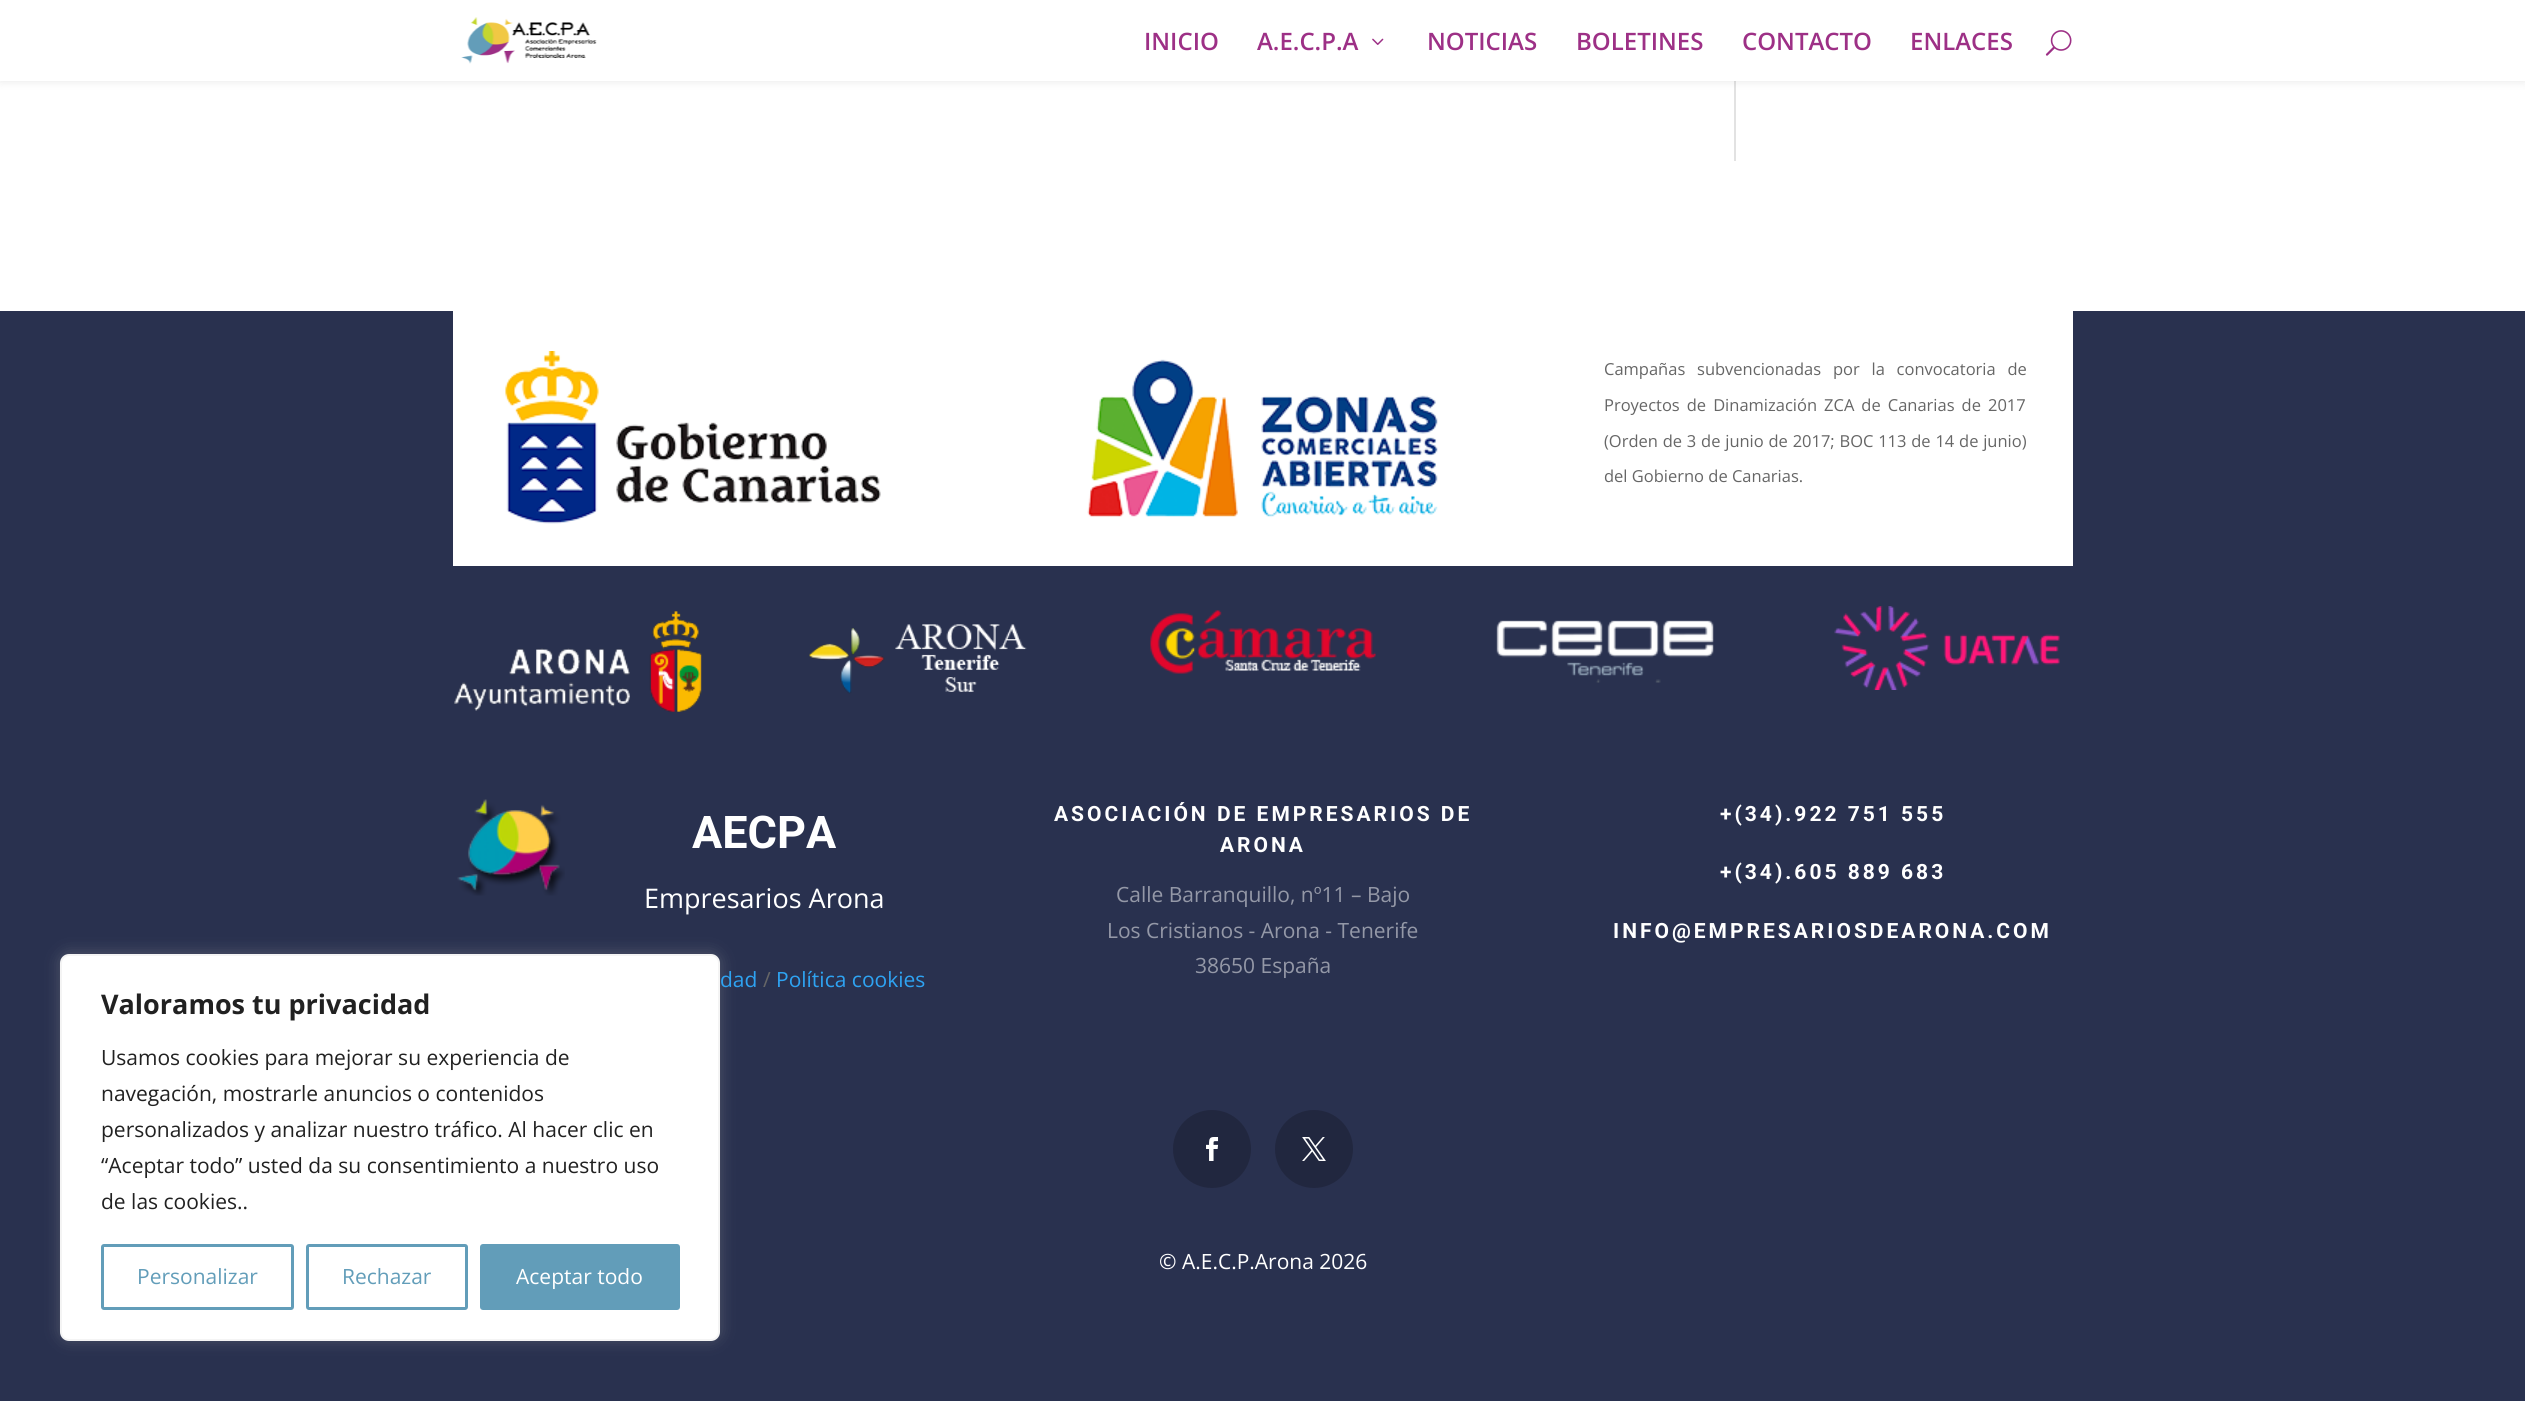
import math
import cairo


def write_spaced(ctx, x, y, s, letter, word):
	ctx.move_to(x, y)
	for ch in s:
		ctx.show_text(ch)
		ctx.rel_move_to(letter + word * (ch == ' '), 0)

def round_path(ctx, x, y, w, h, r):
	ctx.new_sub_path()
	for i, (u, v) in enumerate([(x + w - r, y + h - r), (x + r, y + h - r), (x + r, y + r), (x + w - r, y + r)]):
		ctx.arc(u, v, r, i * math.pi / 2, (i + 1) * math.pi / 2)
	ctx.close_path()

def blur_box(ctx, x, y, w, h, r, blur, alpha):
	ctx.push_group_with_content(cairo.CONTENT_ALPHA)
	ctx.set_operator(cairo.OPERATOR_SOURCE)
	for i in range(15, -16, -2):
		e = blur * i / 6
		if min(w, h) + 2 * e > 0:
			ctx.set_source_rgba(0, 0, 0, alpha * math.erfc((i - 1) / 8.5) / 2)
			round_path(ctx, x - e, y - e, w + 2 * e, h + 2 * e, max(0, min(r + e + blur * .6, min(w, h) / 2 + e)))
			ctx.fill()
	ctx.mask(ctx.pop_group())

def paste(ctx, path, x, y, w, h):
	ctx.save()
	ctx.set_source_surface(cairo.ImageSurface.create_from_png(path), x, y)
	ctx.rectangle(x, y, w, h)
	ctx.fill()
	ctx.restore()

def draw(ctx):
	ctx.set_source_rgb(1, 1, 1)
	ctx.paint()
	ctx.set_source_rgb(0.161, 0.192, 0.31)
	ctx.rectangle(0, 311, 2525, 1090)
	ctx.fill()
	ctx.set_source_rgb(0.675, 0.671, 0.671)
	blur_box(ctx, 60, 953, 660, 387, 9, 7.5, 0.3)
	ctx.set_source_rgb(1, 1, 1)
	round_path(ctx, 61, 955, 658, 385, 8)
	ctx.fill_preserve()
	ctx.set_source_rgb(0.957, 0.957, 0.957)
	ctx.stroke()
	ctx.select_font_face('Open Sans', cairo.FONT_SLANT_NORMAL, cairo.FONT_WEIGHT_BOLD)
	ctx.set_font_size(27)
	ctx.set_source_rgb(0.129, 0.129, 0.129)
	ctx.move_to(101, 1014)
	ctx.show_text('Valoramos tu privacidad')
	ctx.select_font_face('Open Sans')
	ctx.set_font_size(21)
	for x, y, s in [
		(101, 1065, 'Usamos cookies para mejorar su experiencia de'),
		(101, 1101, 'navegación, mostrarle anuncios o contenidos'),
		(101, 1137, 'personalizados y analizar nuestro tráfico. Al hacer clic en'),
		(101, 1173, '“Aceptar todo” usted da su consentimiento a nuestro uso'),
		(101, 1209, 'de las cookies..'),
	]:
		ctx.move_to(x, y)
		ctx.show_text(s)
	round_path(ctx, 102.5, 1245.5, 190, 63, 1.5)
	ctx.set_source_rgb(0.384, 0.616, 0.725)
	ctx.set_line_width(3)
	ctx.stroke()
	ctx.move_to(137, 1284)
	ctx.show_text('Personalizar')
	round_path(ctx, 307.5, 1245.5, 159, 63, 1.5)
	ctx.stroke()
	ctx.move_to(342, 1284)
	ctx.show_text('Rechazar')
	round_path(ctx, 481.5, 1245.5, 197, 63, 1.5)
	ctx.fill_preserve()
	ctx.stroke()
	ctx.set_source_rgb(1, 1, 1)
	ctx.move_to(516, 1284)
	ctx.show_text('Aceptar todo')
	ctx.set_source_rgb(0.886, 0.886, 0.886)
	ctx.rectangle(1734, 81, 2, 80)
	ctx.fill()
	ctx.set_source_rgb(0, 0, 0)
	blur_box(ctx, 0, 0, 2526, 81, 0, 5, 0.1)
	ctx.set_source_rgb(1, 1, 1)
	ctx.rectangle(0, 0, 2525, 81)
	ctx.fill()
	paste(ctx, 'media/1.png', 461, 17, 136, 47)
	ctx.select_font_face('Open Sans SemiBold')
	ctx.set_font_size(24)
	ctx.set_source_rgb(0.616, 0.188, 0.525)
	ctx.move_to(1144, 50)
	ctx.show_text('INICIO')
	ctx.move_to(1257, 50)
	ctx.show_text('A.E.C.P.A')
	paste(ctx, 'media/2.png', 1372, 38, 12, 7)
	for x, y, s in [
		(1427, 50, 'NOTICIAS'),
		(1576, 50, 'BOLETINES'),
		(1742, 50, 'CONTACTO'),
		(1910, 50, 'ENLACES'),
	]:
		ctx.move_to(x, y)
		ctx.show_text(s)
	paste(ctx, 'media/3.png', 2045, 30, 27, 26)
	ctx.set_source_rgb(1, 1, 1)
	ctx.rectangle(453, 311, 1620, 255)
	ctx.fill()
	paste(ctx, 'media/4.png', 505, 351, 376, 173)
	paste(ctx, 'media/5.png', 1087, 359, 351, 159)
	ctx.select_font_face('Open Sans')
	ctx.set_font_size(16.5)
	ctx.set_source_rgb(0.4, 0.4, 0.4)
	write_spaced(ctx, 1604, 375, 'Campañas subvencionadas por la convocatoria de', 0, 7.5)
	write_spaced(ctx, 1604, 411, 'Proyectos de Dinamización ZCA de Canarias de 2017', 0, 2.75)
	write_spaced(ctx, 1604, 447, '(Orden de 3 de junio de 2017; BOC 113 de 14 de junio)', 0, 0.5)
	ctx.move_to(1604, 482)
	ctx.show_text('del Gobierno de Canarias.')
	paste(ctx, 'media/6.png', 454, 611, 248, 101)
	paste(ctx, 'media/7.png', 809, 624, 218, 70)
	paste(ctx, 'media/8.png', 1150, 610, 226, 64)
	paste(ctx, 'media/9.png', 1496, 620, 218, 63)
	paste(ctx, 'media/10.png', 1834, 606, 226, 84)
	paste(ctx, 'media/11.png', 457, 799, 108, 97)
	ctx.select_font_face('Roboto', cairo.FONT_SLANT_NORMAL, cairo.FONT_WEIGHT_BOLD)
	ctx.set_font_size(45)
	ctx.set_source_rgb(1, 1, 1)
	ctx.move_to(692, 848)
	ctx.show_text('AECPA')
	ctx.select_font_face('Open Sans')
	ctx.set_font_size(27)
	ctx.move_to(644, 908)
	ctx.show_text('Empresarios Arona')
	ctx.set_font_size(21)
	ctx.set_source_rgb(0.18, 0.639, 0.949)
	ctx.move_to(720, 987)
	ctx.show_text('dad')
	ctx.set_source_rgb(0.4, 0.4, 0.4)
	ctx.move_to(763, 987)
	ctx.show_text('/')
	ctx.set_source_rgb(0.18, 0.639, 0.949)
	ctx.move_to(776, 987)
	ctx.show_text('Política cookies')
	ctx.select_font_face('Roboto', cairo.FONT_SLANT_NORMAL, cairo.FONT_WEIGHT_BOLD)
	ctx.set_source_rgb(1, 1, 1)
	write_spaced(ctx, 1054, 821, 'ASOCIACIÓN DE EMPRESARIOS DE', 3, 0)
	write_spaced(ctx, 1220, 852, 'ARONA', 3, 0)
	ctx.select_font_face('Open Sans')
	ctx.set_source_rgb(0.58, 0.596, 0.655)
	for x, y, s in [
		(1116, 902, 'Calle Barranquillo, nº11 – Bajo'),
		(1107, 938, 'Los Cristianos - Arona - Tenerife'),
		(1195, 973, '38650 España'),
	]:
		ctx.move_to(x, y)
		ctx.show_text(s)
	ctx.select_font_face('Roboto', cairo.FONT_SLANT_NORMAL, cairo.FONT_WEIGHT_BOLD)
	ctx.set_source_rgb(1, 1, 1)
	for x, y, s in [
		(1720, 821, '+(34).922 751 555'),
		(1720, 879, '+(34).605 889 683'),
		(1613, 938, 'INFO@EMPRESARIOSDEARONA.COM'),
	]:
		write_spaced(ctx, x, y, s, 3, 0)
	ctx.set_source_rgb(0.129, 0.153, 0.247)
	ctx.new_path()
	ctx.arc(1212, 1149, 39, 0, 2 * math.pi)
	ctx.fill()
	paste(ctx, 'media/12.png', 1206, 1137, 13, 24)
	ctx.arc(1314, 1149, 39, 0, 2 * math.pi)
	ctx.fill()
	paste(ctx, 'media/13.png', 1302, 1137, 24, 24)
	ctx.select_font_face('Open Sans')
	ctx.set_source_rgb(1, 1, 1)
	ctx.move_to(1159, 1269)
	ctx.show_text('© A.E.C.P.Arona 2026')


surface = cairo.ImageSurface(cairo.FORMAT_RGB24, 2525, 1401)
ctx = cairo.Context(surface)
options = cairo.FontOptions()
options.set_hint_metrics(cairo.HINT_METRICS_OFF)
options.set_hint_style(cairo.HINT_STYLE_NONE)
ctx.set_font_options(options)
ctx.set_miter_limit(4)
draw(ctx)
surface.write_to_png('image.png')
